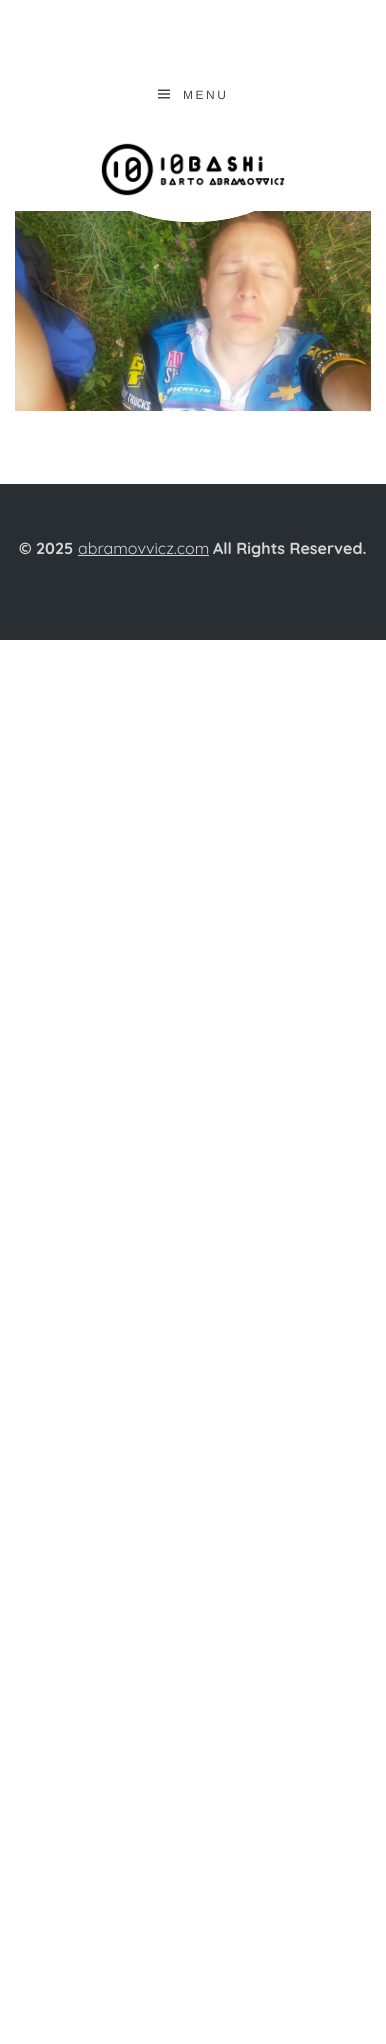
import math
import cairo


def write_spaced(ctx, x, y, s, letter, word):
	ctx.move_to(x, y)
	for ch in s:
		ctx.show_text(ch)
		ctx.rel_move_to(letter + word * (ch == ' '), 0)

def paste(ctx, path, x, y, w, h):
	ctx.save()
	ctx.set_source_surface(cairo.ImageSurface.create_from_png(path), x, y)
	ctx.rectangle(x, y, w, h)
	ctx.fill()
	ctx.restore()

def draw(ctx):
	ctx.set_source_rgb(1, 1, 1)
	ctx.paint()
	paste(ctx, 'media/1.png', 158, 89, 12, 10)
	ctx.select_font_face('Liberation Sans')
	ctx.set_font_size(12)
	ctx.set_source_rgb(0.271, 0.271, 0.271)
	write_spaced(ctx, 183, 99, 'MENU', 2.5, 0)
	paste(ctx, 'media/3.png', 15, 211, 356, 200)
	ctx.set_source_rgb(1, 1, 1)
	ctx.new_path()
	ctx.move_to(193, 117)
	ctx.curve_to(248, 117, 293, 140.5, 293, 169.5)
	ctx.curve_to(293, 198.5, 248, 222, 193, 222)
	ctx.curve_to(138, 222, 93, 198.5, 93, 169.5)
	ctx.curve_to(93, 140.5, 138, 117, 193, 117)
	ctx.close_path()
	ctx.fill()
	ctx.new_path()
	ctx.move_to(193, 119.5)
	ctx.curve_to(247, 119.5, 290.5, 142, 290.5, 169.5)
	ctx.curve_to(290.5, 197, 247, 219.5, 193, 219.5)
	ctx.curve_to(139, 219.5, 95.5, 197, 95.5, 169.5)
	ctx.curve_to(95.5, 142, 139, 119.5, 193, 119.5)
	ctx.close_path()
	ctx.set_line_width(5)
	ctx.stroke()
	paste(ctx, 'media/2.png', 101, 143, 184, 53)
	ctx.set_source_rgb(0.161, 0.18, 0.2)
	ctx.rectangle(0, 484, 386, 156)
	ctx.fill()
	ctx.select_font_face('Quicksand', cairo.FONT_SLANT_NORMAL, cairo.FONT_WEIGHT_BOLD)
	ctx.set_font_size(16)
	ctx.set_source_rgb(0.831, 0.835, 0.839)
	ctx.move_to(19, 554)
	ctx.show_text('© 2025')
	ctx.select_font_face('Quicksand')
	ctx.move_to(78, 554)
	ctx.show_text('abramovvicz.com')
	ctx.rectangle(78, 555, 131, 1)
	ctx.fill()
	ctx.select_font_face('Quicksand', cairo.FONT_SLANT_NORMAL, cairo.FONT_WEIGHT_BOLD)
	ctx.move_to(213, 554)
	ctx.show_text('All Rights Reserved.')


surface = cairo.ImageSurface(cairo.FORMAT_RGB24, 386, 2044)
ctx = cairo.Context(surface)
options = cairo.FontOptions()
options.set_hint_metrics(cairo.HINT_METRICS_OFF)
options.set_hint_style(cairo.HINT_STYLE_NONE)
ctx.set_font_options(options)
ctx.set_miter_limit(4)
draw(ctx)
surface.write_to_png('image.png')
